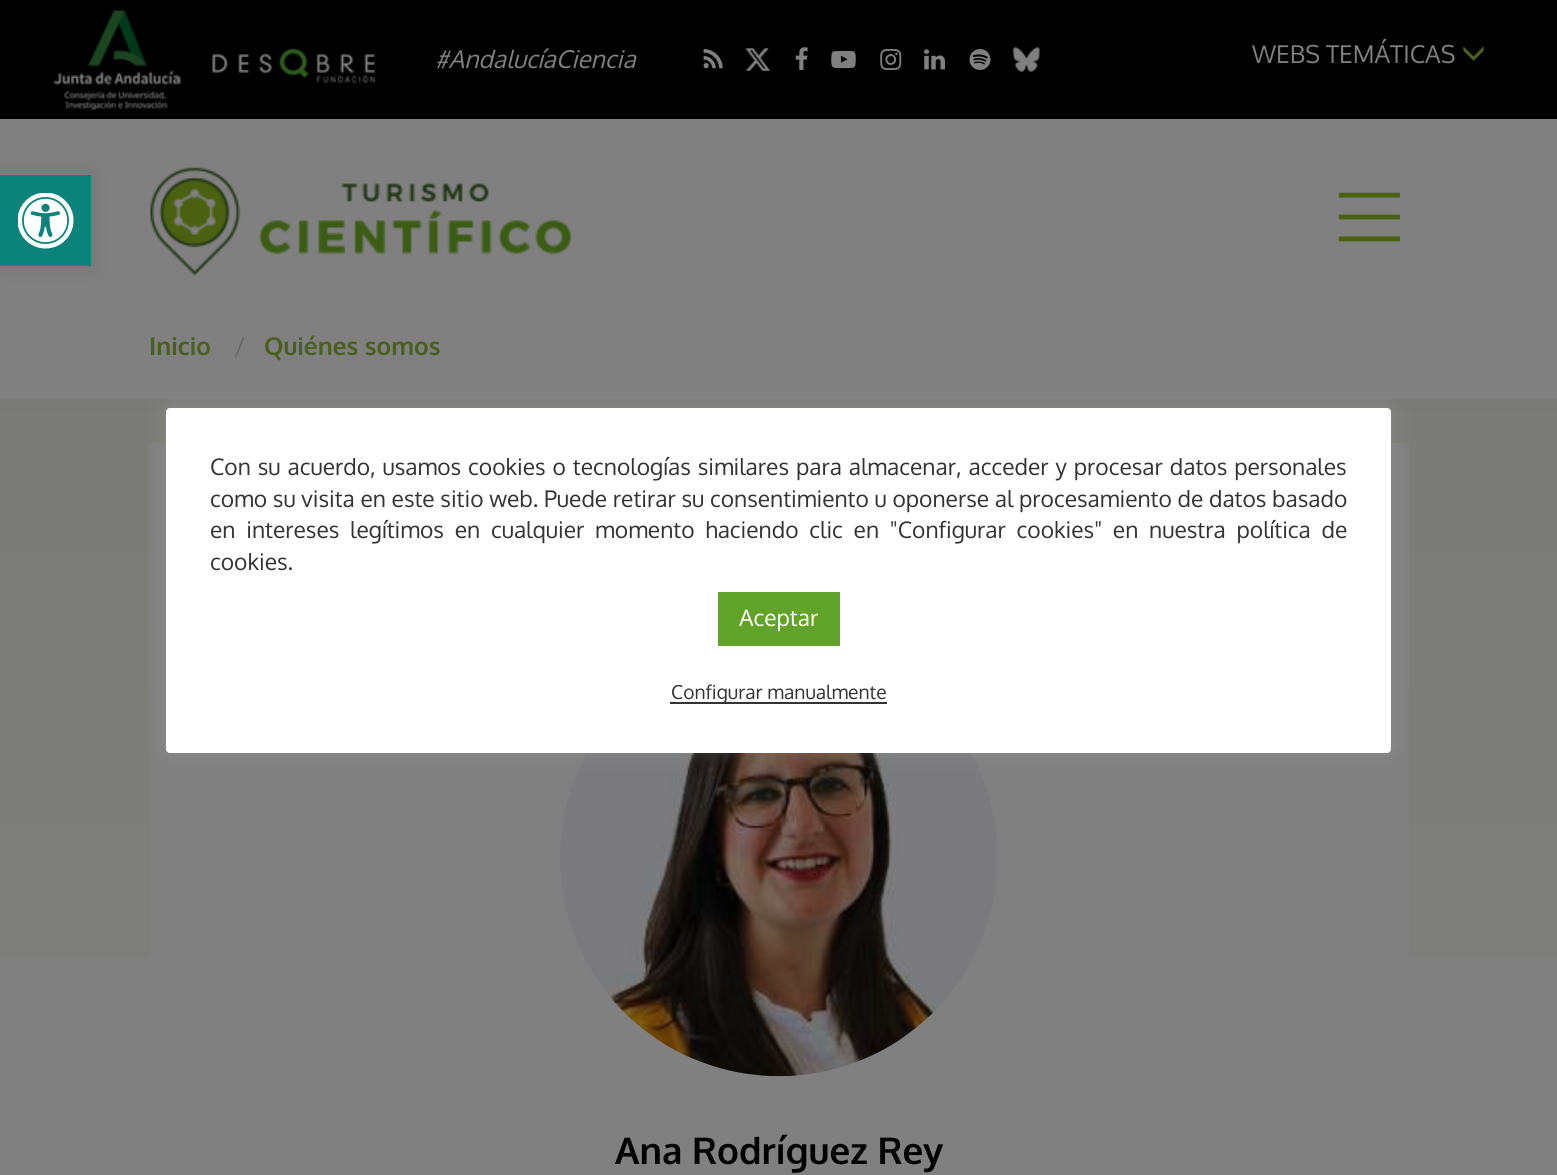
import math
import cairo


def write_spaced(ctx, x, y, s, letter, word):
	ctx.move_to(x, y)
	for ch in s:
		ctx.show_text(ch)
		ctx.rel_move_to(letter + word * (ch == ' '), 0)

def round_path(ctx, x, y, w, h, r):
	ctx.new_sub_path()
	for i, (u, v) in enumerate([(x + w - r, y + h - r), (x + r, y + h - r), (x + r, y + r), (x + w - r, y + r)]):
		ctx.arc(u, v, r, i * math.pi / 2, (i + 1) * math.pi / 2)
	ctx.close_path()

def blur_box(ctx, x, y, w, h, r, blur, alpha):
	ctx.push_group_with_content(cairo.CONTENT_ALPHA)
	ctx.set_operator(cairo.OPERATOR_SOURCE)
	for i in range(15, -16, -2):
		e = blur * i / 6
		if min(w, h) + 2 * e > 0:
			ctx.set_source_rgba(0, 0, 0, alpha * math.erfc((i - 1) / 8.5) / 2)
			round_path(ctx, x - e, y - e, w + 2 * e, h + 2 * e, max(0, min(r + e + blur * .6, min(w, h) / 2 + e)))
			ctx.fill()
	ctx.mask(ctx.pop_group())

def paste(ctx, path, x, y, w, h):
	ctx.save()
	ctx.set_source_surface(cairo.ImageSurface.create_from_png(path), x, y)
	ctx.rectangle(x, y, w, h)
	ctx.fill()
	ctx.restore()

def draw(ctx):
	ctx.set_source_rgb(0.502, 0.502, 0.502)
	ctx.paint()
	ctx.set_source_rgb(0, 0, 0)
	ctx.rectangle(0, 0, 1557, 119)
	ctx.fill()
	paste(ctx, 'media/1.png', 53, 10, 323, 100)
	ctx.select_font_face('Oxygen', cairo.FONT_SLANT_ITALIC)
	ctx.set_font_size(24.5)
	ctx.set_source_rgb(0.502, 0.502, 0.502)
	ctx.move_to(435, 68)
	ctx.show_text('#AndalucíaCiencia')
	paste(ctx, 'media/2.png', 703, 49, 20, 20)
	paste(ctx, 'media/3.png', 745, 48, 25, 23)
	paste(ctx, 'media/4.png', 795, 47, 13, 23)
	paste(ctx, 'media/5.png', 831, 50, 25, 19)
	paste(ctx, 'media/6.png', 880, 49, 22, 21)
	paste(ctx, 'media/7.png', 924, 49, 21, 21)
	paste(ctx, 'media/8.png', 969, 49, 22, 21)
	paste(ctx, 'media/9.png', 1013, 47, 27, 25)
	ctx.select_font_face('Oxygen')
	ctx.move_to(1252, 63)
	ctx.show_text('WEBS TEMÁTICAS')
	paste(ctx, 'media/10.png', 1463, 46, 21, 15)
	ctx.set_source_rgb(0, 0, 0)
	blur_box(ctx, 0, 175, 91, 91, 0, 9, 0.1)
	ctx.set_source_rgb(0.043, 0.51, 0.478)
	ctx.rectangle(0, 175, 91, 91)
	ctx.fill()
	paste(ctx, 'media/11.png', 18, 193, 56, 56)
	paste(ctx, 'media/12.png', 150, 167, 421, 109)
	paste(ctx, 'media/13.png', 1338, 192, 62, 50)
	gradient = cairo.LinearGradient(779, 329, 779, 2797)
	gradient.add_color_stop_rgba(0, 0.478, 0.482, 0.463, 1)
	gradient.add_color_stop_rgba(0.34, 0.502, 0.502, 0.502, 1)
	ctx.set_source(gradient)
	ctx.rectangle(0, 399, 1557, 559)
	ctx.fill()
	ctx.select_font_face('Oxygen', cairo.FONT_SLANT_NORMAL, cairo.FONT_WEIGHT_BOLD)
	ctx.set_source_rgb(0.29, 0.373, 0.114)
	ctx.move_to(149, 355)
	ctx.show_text('Inicio')
	ctx.select_font_face('Oxygen')
	ctx.set_source_rgb(0.4, 0.4, 0.4)
	ctx.move_to(234, 355)
	ctx.show_text('/')
	ctx.select_font_face('Oxygen', cairo.FONT_SLANT_NORMAL, cairo.FONT_WEIGHT_BOLD)
	ctx.set_source_rgb(0.29, 0.373, 0.114)
	ctx.move_to(264, 355)
	ctx.show_text('Quiénes somos')
	ctx.set_source_rgb(0.502, 0.502, 0.502)
	ctx.rectangle(149, 443, 1260, 515)
	ctx.fill()
	paste(ctx, 'media/14.png', 560, 753, 437, 324)
	ctx.set_source_rgb(0.675, 0.671, 0.671)
	blur_box(ctx, 166, 406, 1225, 345, 4, 9, 0.3)
	ctx.set_source_rgb(1, 1, 1)
	round_path(ctx, 166, 408, 1225, 345, 4)
	ctx.fill()
	ctx.select_font_face('Oxygen')
	ctx.set_font_size(22.75)
	ctx.set_source_rgb(0.2, 0.2, 0.2)
	write_spaced(ctx, 210, 475, 'Con su acuerdo, usamos cookies o tecnologías similares para almacenar, acceder y procesar datos personales', 0, 1.25)
	ctx.move_to(210, 507)
	ctx.show_text('como su visita en este sitio web. Puede retirar su consentimiento u oponerse al procesamiento de datos basado')
	write_spaced(ctx, 210, 538, 'en intereses legítimos en cualquier momento haciendo clic en "Configurar cookies" en nuestra política de', 0, 5.1)
	ctx.move_to(210, 570)
	ctx.show_text('cookies.')
	ctx.set_source_rgb(0.38, 0.635, 0.161)
	ctx.rectangle(718, 592, 122, 54)
	ctx.fill()
	ctx.set_source_rgb(1, 1, 1)
	ctx.move_to(739, 626)
	ctx.show_text('Aceptar')
	ctx.set_source_rgb(0.2, 0.2, 0.2)
	ctx.rectangle(670, 702, 217, 2)
	ctx.fill()
	ctx.set_font_size(19.25)
	ctx.move_to(671, 699)
	ctx.show_text('Configurar manualmente')
	ctx.select_font_face('Oxygen', cairo.FONT_SLANT_NORMAL, cairo.FONT_WEIGHT_BOLD)
	ctx.set_font_size(36.75)
	ctx.set_source_rgb(0, 0, 0)
	ctx.move_to(615, 1164)
	ctx.show_text('Ana Rodríguez Rey')


surface = cairo.ImageSurface(cairo.FORMAT_RGB24, 1557, 1175)
ctx = cairo.Context(surface)
options = cairo.FontOptions()
options.set_hint_metrics(cairo.HINT_METRICS_OFF)
options.set_hint_style(cairo.HINT_STYLE_NONE)
ctx.set_font_options(options)
ctx.set_miter_limit(4)
draw(ctx)
surface.write_to_png('image.png')
